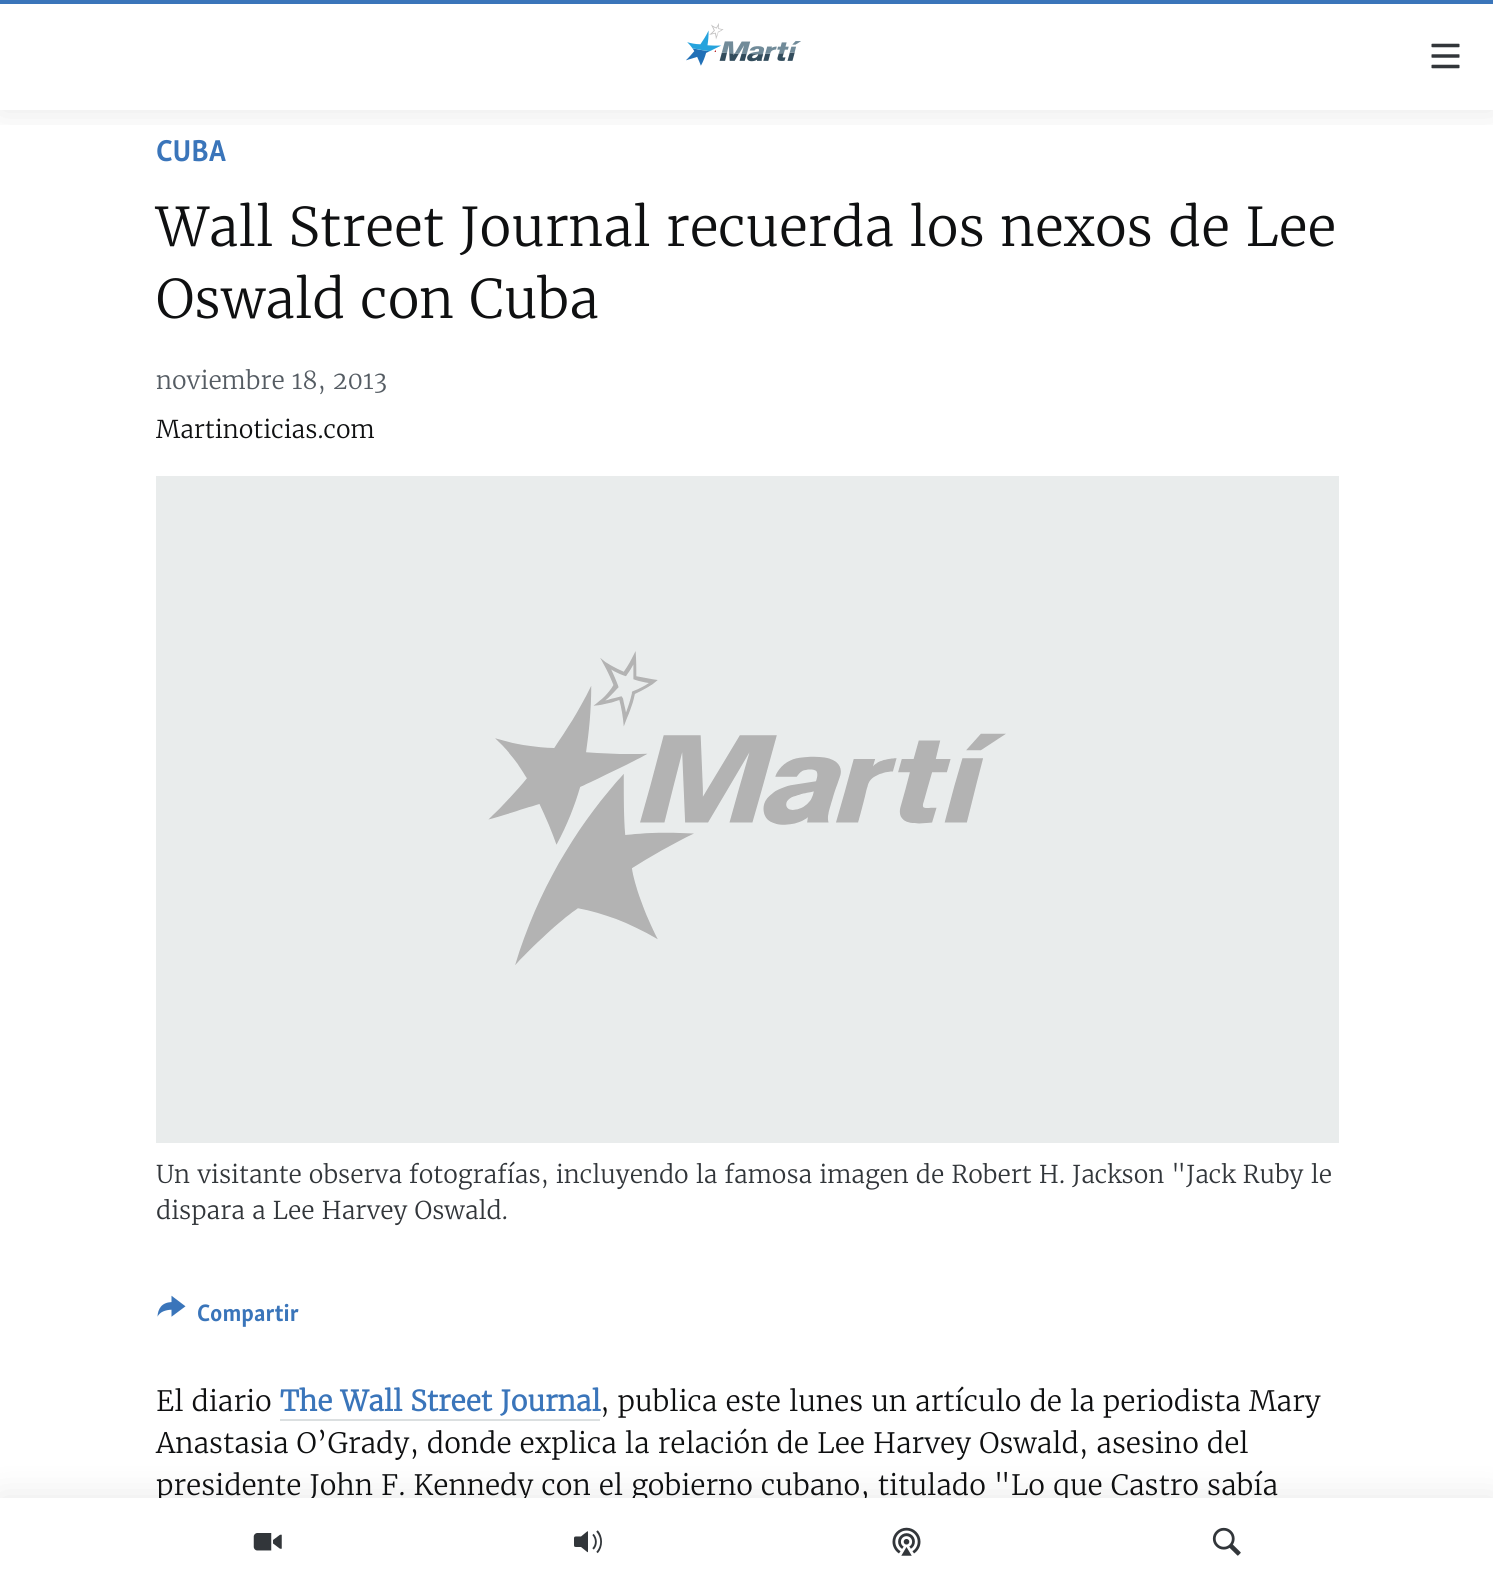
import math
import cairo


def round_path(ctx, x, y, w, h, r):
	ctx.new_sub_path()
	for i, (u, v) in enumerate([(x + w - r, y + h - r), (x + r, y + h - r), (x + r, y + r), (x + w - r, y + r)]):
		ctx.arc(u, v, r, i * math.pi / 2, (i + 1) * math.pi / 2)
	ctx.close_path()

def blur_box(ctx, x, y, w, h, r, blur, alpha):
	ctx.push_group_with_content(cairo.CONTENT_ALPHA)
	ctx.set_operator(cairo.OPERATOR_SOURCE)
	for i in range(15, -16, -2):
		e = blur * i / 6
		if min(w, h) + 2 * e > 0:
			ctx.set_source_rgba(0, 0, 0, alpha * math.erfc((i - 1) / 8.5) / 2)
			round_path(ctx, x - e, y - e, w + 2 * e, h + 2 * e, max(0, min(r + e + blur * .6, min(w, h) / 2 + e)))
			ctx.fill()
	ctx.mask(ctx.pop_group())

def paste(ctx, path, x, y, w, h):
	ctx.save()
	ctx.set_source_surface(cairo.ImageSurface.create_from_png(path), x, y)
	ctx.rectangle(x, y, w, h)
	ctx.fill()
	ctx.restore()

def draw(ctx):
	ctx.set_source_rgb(1, 1, 1)
	ctx.paint()
	ctx.save()
	ctx.rectangle(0, 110, 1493, 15)
	ctx.clip()
	ctx.set_source_rgb(0, 0, 0)
	blur_box(ctx, 0, 0, 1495, 110, 0, 17.5, 0.1)
	ctx.restore()
	ctx.set_source_rgb(0.227, 0.459, 0.729)
	ctx.rectangle(0, 0, 1493, 4)
	ctx.fill()
	paste(ctx, 'media/1.png', 686, 23, 115, 43)
	paste(ctx, 'media/2.png', 1431, 43, 29, 26)
	ctx.set_source_rgb(0, 0, 0)
	blur_box(ctx, 0, 1498, 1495, 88, 0, 17.5, 0.1)
	ctx.select_font_face('Merriweather Light')
	ctx.set_font_size(28)
	ctx.set_source_rgb(0.059, 0.063, 0.067)
	ctx.move_to(156, 1495)
	ctx.show_text('presidente John F. Kennedy con el gobierno cubano, titulado "Lo que Castro sabía')
	ctx.set_source_rgb(1, 1, 1)
	ctx.rectangle(0, 1498, 1493, 87)
	ctx.fill()
	paste(ctx, 'media/3.png', 253, 1533, 29, 18)
	paste(ctx, 'media/4.png', 574, 1530, 28, 24)
	paste(ctx, 'media/5.png', 892, 1527, 29, 29)
	paste(ctx, 'media/6.png', 1212, 1527, 29, 29)
	ctx.select_font_face('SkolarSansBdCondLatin', cairo.FONT_SLANT_NORMAL, cairo.FONT_WEIGHT_BOLD)
	ctx.set_font_size(31)
	ctx.set_source_rgb(0.227, 0.459, 0.729)
	ctx.move_to(156, 161)
	ctx.show_text('CUBA')
	ctx.select_font_face('Merriweather Light')
	ctx.set_font_size(53.2)
	ctx.set_source_rgb(0.059, 0.063, 0.067)
	ctx.move_to(156, 246)
	ctx.show_text('Wall Street Journal recuerda los nexos de Lee')
	ctx.move_to(156, 318)
	ctx.show_text('Oswald con Cuba')
	ctx.set_font_size(24.5)
	ctx.set_source_rgb(0.333, 0.361, 0.388)
	ctx.move_to(156, 389)
	ctx.show_text('noviembre 18, 2013')
	ctx.set_source_rgb(0.059, 0.063, 0.067)
	ctx.move_to(156, 438)
	ctx.show_text('Martinoticias.com')
	ctx.set_source_rgb(0.914, 0.922, 0.925)
	ctx.rectangle(156, 476, 1183, 667)
	ctx.fill()
	paste(ctx, 'media/7.png', 488, 651, 518, 314)
	ctx.set_source_rgb(0.196, 0.212, 0.227)
	ctx.move_to(156, 1183)
	ctx.show_text('Un visitante observa fotografías, incluyendo la famosa imagen de Robert H. Jackson "Jack Ruby le')
	ctx.move_to(156, 1219)
	ctx.show_text('dispara a Lee Harvey Oswald.')
	paste(ctx, 'media/8.png', 157, 1295, 29, 22)
	ctx.select_font_face('SkolarSansBdCondLatin', cairo.FONT_SLANT_NORMAL, cairo.FONT_WEIGHT_BOLD)
	ctx.set_source_rgb(0.227, 0.459, 0.729)
	ctx.move_to(197, 1321)
	ctx.show_text('Compartir')
	ctx.select_font_face('Merriweather Light')
	ctx.set_font_size(28)
	ctx.set_source_rgb(0.059, 0.063, 0.067)
	ctx.move_to(156, 1411)
	ctx.show_text('El diario')
	ctx.select_font_face('Merriweather', cairo.FONT_SLANT_NORMAL, cairo.FONT_WEIGHT_BOLD)
	ctx.set_source_rgb(0.227, 0.459, 0.729)
	ctx.move_to(280, 1411)
	ctx.show_text('The Wall Street Journal')
	ctx.set_source_rgb(0.859, 0.875, 0.878)
	ctx.rectangle(280, 1419, 320, 2)
	ctx.fill()
	ctx.select_font_face('Merriweather Light')
	ctx.set_source_rgb(0.059, 0.063, 0.067)
	ctx.move_to(600, 1411)
	ctx.show_text(', publica este lunes un artículo de la periodista Mary')
	ctx.move_to(156, 1453)
	ctx.show_text('Anastasia O’Grady, donde explica la relación de Lee Harvey Oswald, asesino del')


surface = cairo.ImageSurface(cairo.FORMAT_RGB24, 1493, 1585)
ctx = cairo.Context(surface)
options = cairo.FontOptions()
options.set_hint_metrics(cairo.HINT_METRICS_OFF)
options.set_hint_style(cairo.HINT_STYLE_NONE)
ctx.set_font_options(options)
ctx.set_miter_limit(4)
draw(ctx)
surface.write_to_png('image.png')
